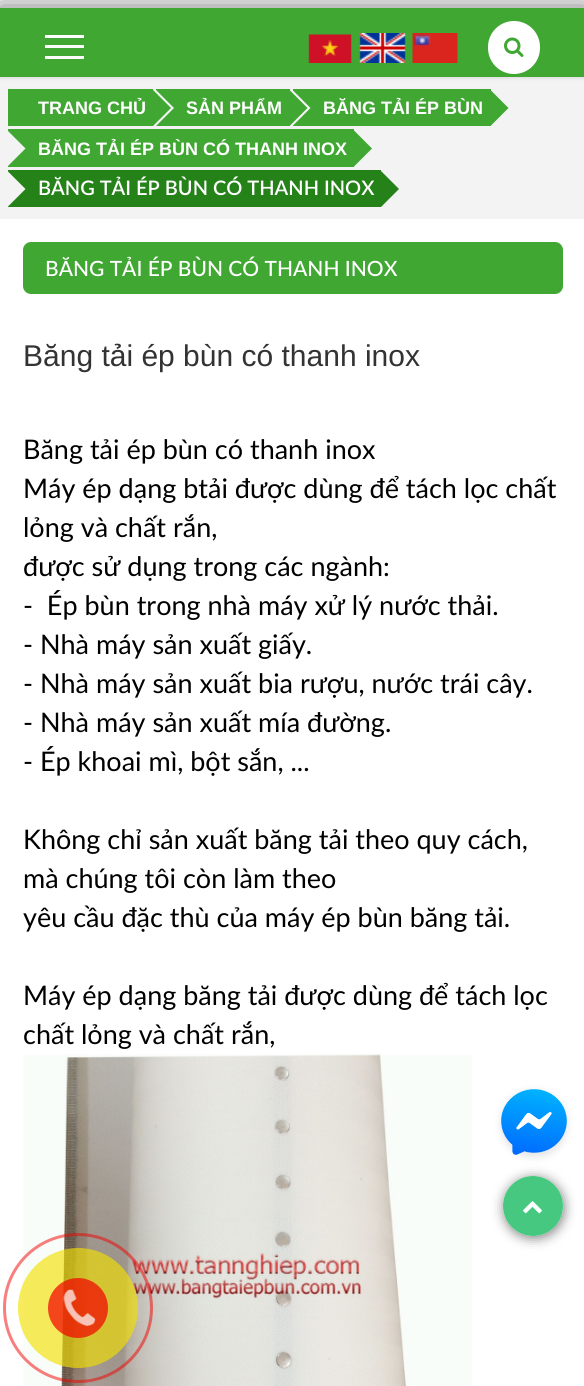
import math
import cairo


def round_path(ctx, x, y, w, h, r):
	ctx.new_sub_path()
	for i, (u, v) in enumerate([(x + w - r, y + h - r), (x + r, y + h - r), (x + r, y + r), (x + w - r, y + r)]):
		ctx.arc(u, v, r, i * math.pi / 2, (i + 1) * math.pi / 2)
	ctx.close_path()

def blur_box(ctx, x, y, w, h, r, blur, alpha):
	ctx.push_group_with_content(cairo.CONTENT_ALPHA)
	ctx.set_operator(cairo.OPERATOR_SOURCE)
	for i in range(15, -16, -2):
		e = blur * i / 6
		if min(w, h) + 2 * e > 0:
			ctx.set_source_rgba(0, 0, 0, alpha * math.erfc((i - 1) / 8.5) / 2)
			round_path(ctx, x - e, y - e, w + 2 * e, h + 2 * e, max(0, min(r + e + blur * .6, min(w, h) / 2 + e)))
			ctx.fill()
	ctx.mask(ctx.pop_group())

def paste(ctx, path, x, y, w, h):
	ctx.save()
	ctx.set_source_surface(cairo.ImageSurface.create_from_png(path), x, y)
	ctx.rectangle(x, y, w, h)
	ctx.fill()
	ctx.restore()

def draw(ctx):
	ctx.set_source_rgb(1, 1, 1)
	ctx.paint()
	ctx.save()
	ctx.rectangle(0, 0, 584, 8)
	ctx.clip()
	ctx.set_source_rgb(0.498, 0.498, 0.498)
	blur_box(ctx, -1, 6, 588, 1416, 0, 12, 1)
	ctx.restore()
	ctx.set_source_rgb(0.251, 0.655, 0.196)
	ctx.rectangle(0, 8, 584, 10)
	ctx.fill()
	ctx.set_source_rgb(0.953, 0.953, 0.953)
	ctx.rectangle(0, 77, 584, 142)
	ctx.fill()
	ctx.set_source_rgb(0, 0, 0)
	blur_box(ctx, 0, 20, 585, 58, 0, 1.5, 0.1)
	ctx.set_source_rgb(0.251, 0.655, 0.196)
	ctx.rectangle(0, 18, 584, 59)
	ctx.fill()
	ctx.set_source_rgb(1, 1, 1)
	ctx.rectangle(45, 35, 39, 3)
	ctx.rectangle(45, 45, 39, 3)
	ctx.rectangle(45, 56, 39, 3)
	ctx.fill()
	paste(ctx, 'media/1.png', 308, 34, 44, 29)
	paste(ctx, 'media/2.png', 359, 33, 47, 30)
	paste(ctx, 'media/3.png', 412, 33, 46, 30)
	round_path(ctx, 488, 21, 52, 53, 26)
	ctx.fill()
	paste(ctx, 'media/4.png', 504, 37, 20, 20)
	ctx.set_source_rgb(0.251, 0.655, 0.196)
	ctx.rectangle(8, 89, 145, 37)
	ctx.fill()
	ctx.select_font_face('Liberation Sans', cairo.FONT_SLANT_NORMAL, cairo.FONT_WEIGHT_BOLD)
	ctx.set_font_size(18)
	ctx.set_source_rgb(1, 1, 1)
	ctx.move_to(38, 114)
	ctx.show_text('TRANG CHỦ')
	ctx.set_source_rgb(0.251, 0.655, 0.196)
	ctx.rectangle(156, 89, 134, 37)
	ctx.fill()
	ctx.set_source_rgb(0.953, 0.953, 0.953)
	ctx.new_path()
	ctx.move_to(156, 126)
	ctx.line_to(156, 90)
	ctx.line_to(174, 108)
	ctx.close_path()
	ctx.fill()
	ctx.set_source_rgb(0.251, 0.655, 0.196)
	ctx.new_path()
	ctx.move_to(153, 126)
	ctx.line_to(153, 90)
	ctx.line_to(171, 108)
	ctx.close_path()
	ctx.fill()
	ctx.set_source_rgb(1, 1, 1)
	ctx.move_to(186, 114)
	ctx.show_text('SẢN PHẨM')
	ctx.set_source_rgb(0.251, 0.655, 0.196)
	ctx.rectangle(293, 89, 198, 37)
	ctx.fill()
	ctx.set_source_rgb(0.953, 0.953, 0.953)
	ctx.new_path()
	ctx.move_to(292.5, 126)
	ctx.line_to(292.5, 90)
	ctx.line_to(310.5, 108)
	ctx.close_path()
	ctx.fill()
	ctx.set_source_rgb(0.251, 0.655, 0.196)
	ctx.new_path()
	ctx.move_to(289.5, 126)
	ctx.line_to(289.5, 90)
	ctx.line_to(307.5, 108)
	ctx.close_path()
	ctx.fill()
	ctx.set_source_rgb(1, 1, 1)
	ctx.move_to(323, 114)
	ctx.show_text('BĂNG TẢI ÉP BÙN')
	ctx.set_source_rgb(0.251, 0.655, 0.196)
	ctx.new_path()
	ctx.move_to(490.5, 126)
	ctx.line_to(490.5, 90)
	ctx.line_to(508.5, 108)
	ctx.close_path()
	ctx.fill()
	ctx.rectangle(8, 129, 346, 38)
	ctx.fill()
	ctx.set_source_rgb(0.953, 0.953, 0.953)
	ctx.new_path()
	ctx.move_to(7.5, 166.5)
	ctx.line_to(7.5, 130.5)
	ctx.line_to(25.5, 148.5)
	ctx.close_path()
	ctx.fill()
	ctx.set_source_rgb(1, 1, 1)
	ctx.move_to(38, 155)
	ctx.show_text('BĂNG TẢI ÉP BÙN CÓ THANH INOX')
	ctx.set_source_rgb(0.251, 0.655, 0.196)
	ctx.new_path()
	ctx.move_to(354, 166.5)
	ctx.line_to(354, 130.5)
	ctx.line_to(372, 148.5)
	ctx.close_path()
	ctx.fill()
	ctx.set_source_rgb(0.145, 0.51, 0.098)
	ctx.rectangle(8, 170, 373, 37)
	ctx.fill()
	ctx.set_source_rgb(0.953, 0.953, 0.953)
	ctx.new_path()
	ctx.move_to(7.5, 207)
	ctx.line_to(7.5, 171)
	ctx.line_to(25.5, 189)
	ctx.close_path()
	ctx.fill()
	ctx.select_font_face('Lato SemiBold')
	ctx.set_font_size(20)
	ctx.set_source_rgb(1, 1, 1)
	ctx.move_to(38, 195)
	ctx.show_text('BĂNG TẢI ÉP BÙN CÓ THANH INOX')
	ctx.set_source_rgb(0.145, 0.51, 0.098)
	ctx.new_path()
	ctx.move_to(381, 207)
	ctx.line_to(381, 171)
	ctx.line_to(399, 189)
	ctx.close_path()
	ctx.fill()
	ctx.set_source_rgb(0.251, 0.655, 0.196)
	round_path(ctx, 23, 242, 540, 52, 8)
	ctx.fill()
	ctx.select_font_face('Lato Medium')
	ctx.set_font_size(21)
	ctx.set_source_rgb(1, 1, 1)
	ctx.move_to(45, 276)
	ctx.show_text('BĂNG TẢI ÉP BÙN CÓ THANH INOX')
	ctx.select_font_face('Liberation Sans')
	ctx.set_font_size(30)
	ctx.set_source_rgb(0.2, 0.2, 0.2)
	ctx.move_to(23, 366)
	ctx.show_text('Băng tải ép bùn có thanh inox')
	ctx.select_font_face('Lato')
	ctx.set_font_size(27)
	ctx.set_source_rgb(0, 0, 0)
	for x, y, s in [
		(23, 459, 'Băng tải ép bùn có thanh inox'),
		(23, 498, 'Máy ép dạng btải được dùng để tách lọc chất'),
		(23, 537, 'lỏng và chất rắn,'),
		(23, 576, 'được sử dụng trong các ngành:'),
		(23, 615, '-  Ép bùn trong nhà máy xử lý nước thải.'),
		(23, 654, '- Nhà máy sản xuất giấy.'),
		(23, 693, '- Nhà máy sản xuất bia rượu, nước trái cây.'),
		(23, 732, '- Nhà máy sản xuất mía đường.'),
		(23, 771, '- Ép khoai mì, bột sắn, ...'),
		(23, 849, 'Không chỉ sản xuất băng tải theo quy cách,'),
		(23, 888, 'mà chúng tôi còn làm theo'),
		(23, 927, 'yêu cầu đặc thù của máy ép bùn băng tải.'),
		(23, 1005, 'Máy ép dạng băng tải được dùng để tách lọc'),
		(23, 1044, 'chất lỏng và chất rắn,'),
	]:
		ctx.move_to(x, y)
		ctx.show_text(s)
	paste(ctx, 'media/5.png', 23, 1054, 449, 332)
	ctx.set_source_rgb(0, 0, 0)
	blur_box(ctx, 501, 1091, 66, 66, 33, 4, 0.11)
	paste(ctx, 'media/6.png', 501, 1089, 66, 66)
	ctx.save()
	ctx.set_fill_rule(cairo.FILL_RULE_EVEN_ODD)
	ctx.new_path()
	ctx.move_to(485, 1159)
	ctx.line_to(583, 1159)
	ctx.line_to(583, 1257)
	ctx.line_to(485, 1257)
	ctx.close_path()
	ctx.move_to(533, 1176)
	ctx.curve_to(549.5, 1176, 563, 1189.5, 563, 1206)
	ctx.curve_to(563, 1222.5, 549.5, 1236, 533, 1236)
	ctx.curve_to(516.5, 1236, 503, 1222.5, 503, 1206)
	ctx.curve_to(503, 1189.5, 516.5, 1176, 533, 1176)
	ctx.close_path()
	ctx.clip()
	blur_box(ctx, 504, 1178, 60, 60, 30, 6, 0.5)
	ctx.restore()
	ctx.set_source_rgba(0.094, 0.729, 0.376, 0.8)
	ctx.arc(533, 1206, 30, 0, 2 * math.pi)
	ctx.fill()
	paste(ctx, 'media/7.png', 523, 1201, 19, 13)
	ctx.arc(78, 1308, 73.5, 0, 2 * math.pi)
	ctx.set_source_rgba(0.949, 0, 0, 0.5)
	ctx.set_line_width(3)
	ctx.stroke()
	ctx.set_source_rgba(0.949, 0.875, 0, 0.64)
	ctx.arc(78, 1308, 60, 0, 2 * math.pi)
	ctx.fill()
	ctx.set_source_rgba(0.949, 0, 0, 0.7)
	ctx.arc(78, 1308, 30, 0, 2 * math.pi)
	ctx.fill()
	paste(ctx, 'media/8.png', 63, 1289, 33, 37)


surface = cairo.ImageSurface(cairo.FORMAT_RGB24, 584, 1386)
ctx = cairo.Context(surface)
options = cairo.FontOptions()
options.set_hint_metrics(cairo.HINT_METRICS_OFF)
options.set_hint_style(cairo.HINT_STYLE_NONE)
ctx.set_font_options(options)
ctx.set_miter_limit(4)
draw(ctx)
surface.write_to_png('image.png')
